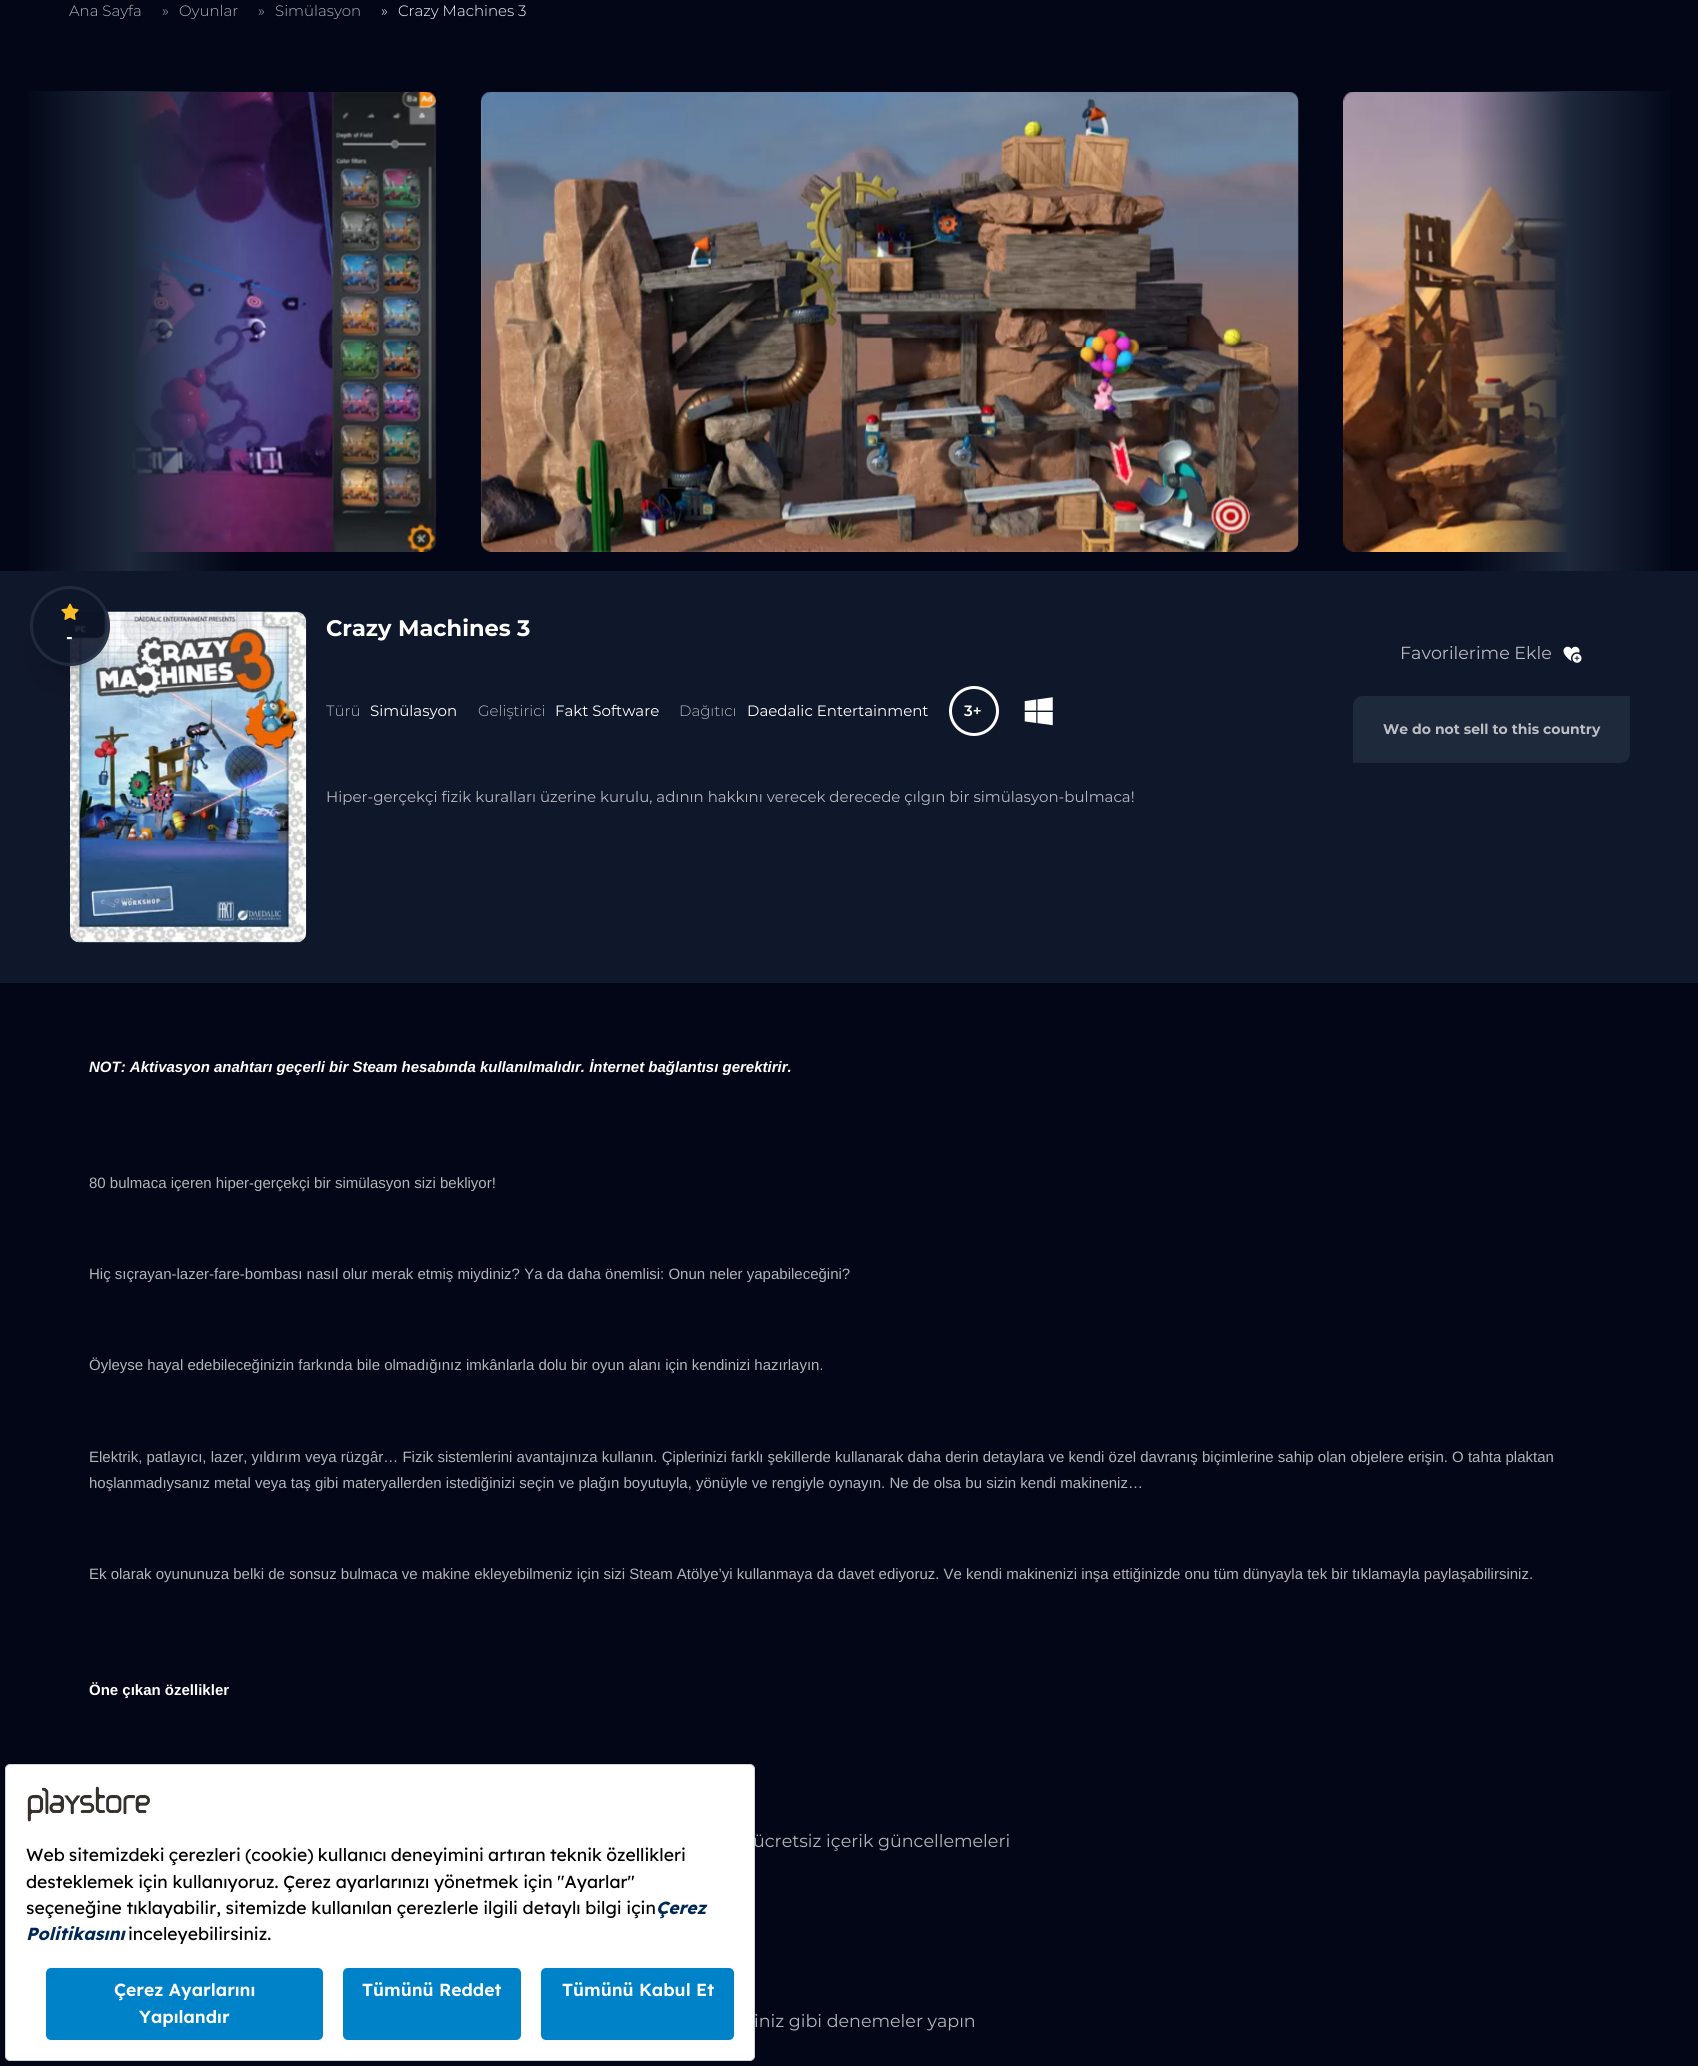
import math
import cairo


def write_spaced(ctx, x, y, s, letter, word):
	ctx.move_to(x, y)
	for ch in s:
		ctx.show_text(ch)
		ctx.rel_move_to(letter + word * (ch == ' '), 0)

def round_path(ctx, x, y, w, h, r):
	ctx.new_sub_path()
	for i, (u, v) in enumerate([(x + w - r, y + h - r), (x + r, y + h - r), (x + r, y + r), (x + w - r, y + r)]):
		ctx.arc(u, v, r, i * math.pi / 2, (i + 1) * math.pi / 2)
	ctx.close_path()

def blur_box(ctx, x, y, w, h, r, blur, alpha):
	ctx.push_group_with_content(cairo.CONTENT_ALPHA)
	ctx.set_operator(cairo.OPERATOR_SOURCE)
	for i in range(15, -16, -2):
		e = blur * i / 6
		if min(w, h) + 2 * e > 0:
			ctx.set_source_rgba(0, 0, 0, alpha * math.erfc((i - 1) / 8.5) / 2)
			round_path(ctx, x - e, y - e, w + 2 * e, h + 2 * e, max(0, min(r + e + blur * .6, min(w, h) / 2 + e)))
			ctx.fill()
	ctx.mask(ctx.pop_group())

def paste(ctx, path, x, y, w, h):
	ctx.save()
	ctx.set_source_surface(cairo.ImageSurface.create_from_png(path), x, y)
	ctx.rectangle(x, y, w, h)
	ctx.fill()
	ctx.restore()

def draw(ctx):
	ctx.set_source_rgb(0.008, 0.024, 0.09)
	ctx.paint()
	ctx.select_font_face('Montserrat Light')
	ctx.set_font_size(15)
	ctx.set_source_rgb(0.702, 0.706, 0.725)
	for x, y, s in [
		(69, 16, 'Ana Sayfa'),
		(162, 16, '»'),
		(179, 16, 'Oyunlar'),
		(258, 16, '»'),
		(275, 16, 'Simülasyon'),
	]:
		ctx.move_to(x, y)
		ctx.show_text(s)
	ctx.set_source_rgb(1, 1, 1)
	ctx.move_to(381, 16)
	ctx.show_text('»')
	ctx.move_to(398, 16)
	ctx.show_text('Crazy Machines 3')
	paste(ctx, 'media/1.png', 131, 92, 306, 460)
	gradient = cairo.LinearGradient(20, 331, 240, 331)
	gradient.add_color_stop_rgba(0, 0.008, 0.024, 0.09, 1)
	gradient.add_color_stop_rgba(0.5, 0.118, 0.161, 0.231, 1)
	gradient.add_color_stop_rgba(1, 0.118, 0.161, 0.231, 0)
	ctx.set_source(gradient)
	ctx.rectangle(28, 91, 210, 480)
	ctx.fill()
	paste(ctx, 'media/3.png', 1343, 92, 225, 460)
	gradient = cairo.LinearGradient(1679, 331, 1459, 331)
	gradient.add_color_stop_rgba(0, 0.008, 0.024, 0.09, 1)
	gradient.add_color_stop_rgba(0.5, 0.118, 0.161, 0.231, 1)
	gradient.add_color_stop_rgba(1, 0.118, 0.161, 0.231, 0)
	ctx.set_source(gradient)
	ctx.rectangle(1461, 91, 210, 480)
	ctx.fill()
	paste(ctx, 'media/2.png', 481, 92, 818, 460)
	ctx.set_source_rgb(0.059, 0.09, 0.165)
	ctx.rectangle(0, 571, 1698, 412)
	ctx.fill()
	paste(ctx, 'media/5.png', 70, 611, 237, 332)
	ctx.save()
	ctx.set_fill_rule(cairo.FILL_RULE_EVEN_ODD)
	ctx.new_path()
	ctx.move_to(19, 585)
	ctx.line_to(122, 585)
	ctx.line_to(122, 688)
	ctx.line_to(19, 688)
	ctx.close_path()
	ctx.move_to(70, 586)
	ctx.curve_to(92, 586, 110, 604, 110, 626)
	ctx.curve_to(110, 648, 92, 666, 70, 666)
	ctx.curve_to(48, 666, 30, 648, 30, 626)
	ctx.curve_to(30, 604, 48, 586, 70, 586)
	ctx.close_path()
	ctx.clip()
	ctx.set_source_rgb(0, 0, 0)
	blur_box(ctx, 38, 604, 65, 65, 32.5, 6, 0.1)
	ctx.restore()
	ctx.save()
	ctx.set_fill_rule(cairo.FILL_RULE_EVEN_ODD)
	ctx.new_path()
	ctx.move_to(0, 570)
	ctx.line_to(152, 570)
	ctx.line_to(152, 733)
	ctx.line_to(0, 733)
	ctx.close_path()
	ctx.move_to(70, 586)
	ctx.curve_to(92, 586, 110, 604, 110, 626)
	ctx.curve_to(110, 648, 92, 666, 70, 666)
	ctx.curve_to(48, 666, 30, 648, 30, 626)
	ctx.curve_to(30, 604, 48, 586, 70, 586)
	ctx.close_path()
	ctx.clip()
	ctx.set_source_rgb(0, 0, 0)
	blur_box(ctx, 36, 618, 68, 67, 33.5, 15.5, 0.1)
	ctx.restore()
	ctx.set_source_rgba(0.059, 0.09, 0.165, 0.9)
	ctx.arc(70, 626, 40, 0, 2 * math.pi)
	ctx.fill()
	ctx.arc(70, 626, 38.5, 0, 2 * math.pi)
	ctx.set_source_rgba(0.2, 0.255, 0.333, 0.5)
	ctx.set_line_width(3)
	ctx.stroke()
	paste(ctx, 'media/4.png', 61, 603, 18, 17)
	ctx.select_font_face('Montserrat', cairo.FONT_SLANT_NORMAL, cairo.FONT_WEIGHT_BOLD)
	ctx.set_font_size(17.5)
	ctx.set_source_rgb(1, 1, 1)
	ctx.move_to(66, 643)
	ctx.show_text('-')
	ctx.set_font_size(22.5)
	ctx.move_to(326, 636)
	ctx.show_text('Crazy Machines 3')
	ctx.select_font_face('Montserrat Light')
	ctx.set_font_size(15)
	ctx.set_source_rgb(0.718, 0.725, 0.749)
	ctx.move_to(326, 716)
	ctx.show_text('Türü')
	ctx.select_font_face('Montserrat')
	ctx.set_source_rgb(1, 1, 1)
	ctx.move_to(370, 716)
	ctx.show_text('Simülasyon')
	ctx.select_font_face('Montserrat Light')
	ctx.set_source_rgb(0.718, 0.725, 0.749)
	ctx.move_to(478, 716)
	ctx.show_text('Geliştirici')
	ctx.select_font_face('Montserrat')
	ctx.set_source_rgb(1, 1, 1)
	ctx.move_to(555, 716)
	ctx.show_text('Fakt Software')
	ctx.select_font_face('Montserrat Light')
	ctx.set_source_rgb(0.718, 0.725, 0.749)
	ctx.move_to(679, 716)
	ctx.show_text('Dağıtıcı')
	ctx.select_font_face('Montserrat')
	ctx.set_source_rgb(1, 1, 1)
	ctx.move_to(747, 716)
	ctx.show_text('Daedalic Entertainment')
	ctx.new_path()
	ctx.arc(974, 711, 23.5, 0, 2 * math.pi)
	ctx.stroke()
	ctx.select_font_face('Montserrat SemiBold')
	ctx.move_to(964, 716)
	ctx.show_text('3+')
	paste(ctx, 'media/6.png', 1024, 697, 29, 29)
	ctx.select_font_face('Montserrat')
	ctx.set_font_size(17.5)
	ctx.set_source_rgb(0.718, 0.725, 0.749)
	ctx.move_to(1400, 659)
	ctx.show_text('Favorilerime Ekle')
	paste(ctx, 'media/7.png', 1563, 646, 19, 17)
	ctx.set_source_rgb(0.118, 0.161, 0.231)
	ctx.new_path()
	ctx.move_to(1363, 696)
	ctx.line_to(1630, 696)
	ctx.line_to(1630, 753)
	ctx.curve_to(1630, 758.5, 1625.5, 763, 1620, 763)
	ctx.line_to(1353, 763)
	ctx.line_to(1353, 706)
	ctx.curve_to(1353, 700.5, 1357.5, 696, 1363, 696)
	ctx.close_path()
	ctx.fill()
	ctx.select_font_face('Montserrat', cairo.FONT_SLANT_NORMAL, cairo.FONT_WEIGHT_BOLD)
	ctx.set_font_size(14)
	ctx.set_source_rgb(0.737, 0.749, 0.769)
	ctx.move_to(1383, 734)
	ctx.show_text('We do not sell to this country')
	ctx.select_font_face('Montserrat')
	ctx.set_font_size(15)
	ctx.set_source_rgb(0.718, 0.725, 0.749)
	ctx.move_to(326, 802)
	ctx.show_text('Hiper-gerçekçi fizik kuralları üzerine kurulu, adının hakkını verecek derecede çılgın bir simülasyon-bulmaca!')
	ctx.select_font_face('Liberation Sans', cairo.FONT_SLANT_ITALIC, cairo.FONT_WEIGHT_BOLD)
	ctx.set_source_rgb(1, 1, 1)
	ctx.move_to(89, 1072)
	ctx.show_text('NOT: Aktivasyon anahtarı geçerli bir Steam hesabında kullanılmalıdır. İnternet bağlantısı gerektirir.')
	ctx.select_font_face('Liberation Sans')
	ctx.set_source_rgb(0.702, 0.706, 0.725)
	for x, y, s in [
		(89, 1188, '80 bulmaca içeren hiper-gerçekçi bir simülasyon sizi bekliyor!'),
		(89, 1279, 'Hiç sıçrayan-lazer-fare-bombası nasıl olur merak etmiş miydiniz? Ya da daha önemlisi: Onun neler yapabileceğini?'),
		(89, 1370, 'Öyleyse hayal edebileceğinizin farkında bile olmadığınız imkânlarla dolu bir oyun alanı için kendinizi hazırlayın.'),
		(89, 1462, 'Elektrik, patlayıcı, lazer, yıldırım veya rüzgâr… Fizik sistemlerini avantajınıza kullanın. Çiplerinizi farklı şekillerde kullanarak daha derin detaylara ve kendi özel davranış biçimlerine sahip olan objelere erişin. O tahta plaktan'),
		(89, 1488, 'hoşlanmadıysanız metal veya taş gibi materyallerden istediğinizi seçin ve plağın boyutuyla, yönüyle ve rengiyle oynayın. Ne de olsa bu sizin kendi makineniz…'),
		(89, 1579, 'Ek olarak oyununuza belki de sonsuz bulmaca ve makine ekleyebilmeniz için sizi Steam Atölye’yi kullanmaya da davet ediyoruz. Ve kendi makinenizi inşa ettiğinizde onu tüm dünyayla tek bir tıklamayla paylaşabilirsiniz.'),
	]:
		ctx.move_to(x, y)
		ctx.show_text(s)
	ctx.select_font_face('Liberation Sans', cairo.FONT_SLANT_NORMAL, cairo.FONT_WEIGHT_BOLD)
	ctx.set_source_rgb(1, 1, 1)
	ctx.move_to(89, 1695)
	ctx.show_text('Öne çıkan özellikler')
	ctx.select_font_face('Montserrat')
	ctx.set_font_size(17.5)
	ctx.set_source_rgb(0.702, 0.706, 0.725)
	ctx.move_to(753, 1847)
	ctx.show_text('ücretsiz içerik güncellemeleri')
	ctx.move_to(754, 2027)
	ctx.show_text('iniz gibi denemeler yapın')
	ctx.set_source_rgb(1, 1, 1)
	round_path(ctx, 5.5, 1764.5, 749, 296, 4.5)
	ctx.fill_preserve()
	ctx.set_source_rgb(0.82, 0.835, 0.859)
	ctx.set_line_width(1)
	ctx.stroke()
	paste(ctx, 'media/8.png', 27, 1786, 123, 36)
	ctx.select_font_face('Lexend')
	ctx.set_source_rgb(0, 0, 0)
	write_spaced(ctx, 26, 1861, 'Web sitemizdeki çerezleri (cookie) kullanıcı deneyimini artıran teknik özellikleri', 0, -0.75)
	write_spaced(ctx, 26, 1888, 'desteklemek için kullanıyoruz. Çerez ayarlarınızı yönetmek için "Ayarlar"', 0, -0.25)
	write_spaced(ctx, 26, 1914, 'seçeneğine tıklayabilir, sitemizde kullanılan çerezlerle ilgili detaylı bilgi için', 0, -0.25)
	ctx.select_font_face('Lexend', cairo.FONT_SLANT_ITALIC, cairo.FONT_WEIGHT_BOLD)
	ctx.set_source_rgb(0, 0.157, 0.341)
	ctx.move_to(656, 1914)
	ctx.show_text('Çerez')
	ctx.move_to(26, 1940)
	ctx.show_text('Politikasını')
	ctx.select_font_face('Lexend')
	ctx.set_source_rgb(0, 0, 0)
	ctx.move_to(128, 1940)
	ctx.show_text('inceleyebilirsiniz.')
	ctx.set_source_rgb(0, 0.51, 0.788)
	round_path(ctx, 46, 1968, 277, 72, 5)
	ctx.fill()
	ctx.select_font_face('Lexend SemiBold')
	ctx.set_source_rgb(1, 1, 1)
	ctx.move_to(114, 1996)
	ctx.show_text('Çerez Ayarlarını')
	ctx.move_to(139, 2023)
	ctx.show_text('Yapılandır')
	ctx.set_source_rgb(0, 0.51, 0.788)
	round_path(ctx, 343, 1968, 178, 72, 5)
	ctx.fill()
	ctx.set_source_rgb(1, 1, 1)
	ctx.move_to(362, 1996)
	ctx.show_text('Tümünü Reddet')
	ctx.set_source_rgb(0, 0.51, 0.788)
	round_path(ctx, 541, 1968, 193, 72, 5)
	ctx.fill()
	ctx.set_source_rgb(1, 1, 1)
	ctx.move_to(562, 1996)
	ctx.show_text('Tümünü Kabul Et')


surface = cairo.ImageSurface(cairo.FORMAT_RGB24, 1698, 2066)
ctx = cairo.Context(surface)
options = cairo.FontOptions()
options.set_hint_metrics(cairo.HINT_METRICS_OFF)
options.set_hint_style(cairo.HINT_STYLE_NONE)
ctx.set_font_options(options)
ctx.set_miter_limit(4)
draw(ctx)
surface.write_to_png('image.png')
